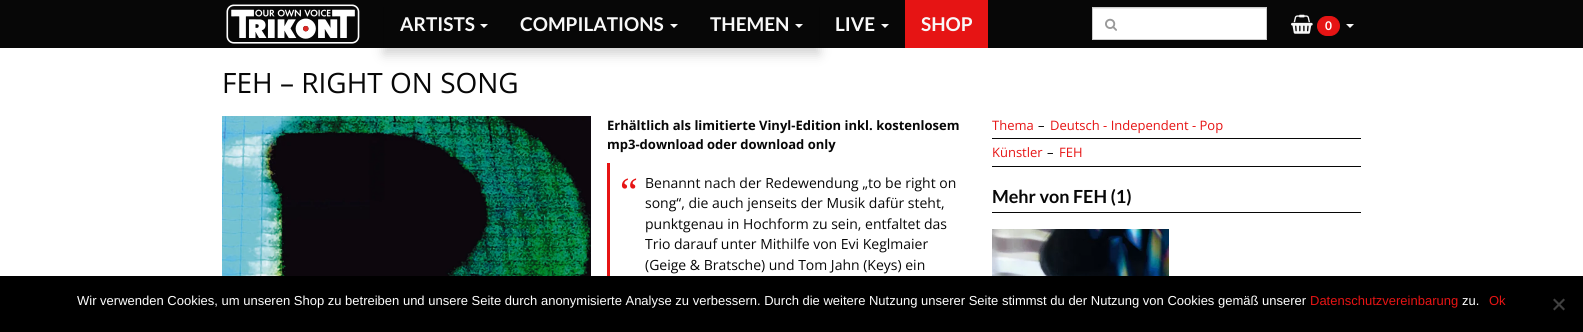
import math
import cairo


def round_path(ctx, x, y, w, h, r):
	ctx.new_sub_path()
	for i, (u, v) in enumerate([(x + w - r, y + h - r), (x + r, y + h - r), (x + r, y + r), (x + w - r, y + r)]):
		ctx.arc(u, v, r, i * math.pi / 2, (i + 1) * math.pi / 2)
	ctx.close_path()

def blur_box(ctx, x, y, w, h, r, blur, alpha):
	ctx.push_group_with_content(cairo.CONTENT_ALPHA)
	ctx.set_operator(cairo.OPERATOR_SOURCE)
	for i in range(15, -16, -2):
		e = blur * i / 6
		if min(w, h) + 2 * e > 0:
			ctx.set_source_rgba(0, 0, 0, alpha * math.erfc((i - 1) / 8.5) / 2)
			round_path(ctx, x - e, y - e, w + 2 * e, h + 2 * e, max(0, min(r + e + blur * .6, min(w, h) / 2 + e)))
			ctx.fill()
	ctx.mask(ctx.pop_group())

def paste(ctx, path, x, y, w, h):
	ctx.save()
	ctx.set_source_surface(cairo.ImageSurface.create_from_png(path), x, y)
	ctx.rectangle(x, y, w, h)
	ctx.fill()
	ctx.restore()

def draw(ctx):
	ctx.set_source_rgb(1, 1, 1)
	ctx.paint()
	ctx.set_source_rgb(0.031, 0.031, 0.031)
	ctx.rectangle(0, 0, 1583, 48)
	ctx.fill()
	paste(ctx, 'media/1.png', 226, 4, 134, 40)
	ctx.save()
	ctx.set_fill_rule(cairo.FILL_RULE_EVEN_ODD)
	ctx.new_path()
	ctx.move_to(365, 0)
	ctx.line_to(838, 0)
	ctx.line_to(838, 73)
	ctx.line_to(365, 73)
	ctx.close_path()
	ctx.move_to(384, 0)
	ctx.line_to(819, 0)
	ctx.line_to(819, 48)
	ctx.line_to(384, 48)
	ctx.close_path()
	ctx.clip()
	ctx.set_source_rgb(0, 0, 0)
	blur_box(ctx, 384, 6, 435, 48, 0, 6, 0.18)
	ctx.restore()
	ctx.select_font_face('Lato', cairo.FONT_SLANT_NORMAL, cairo.FONT_WEIGHT_BOLD)
	ctx.set_font_size(19)
	ctx.set_source_rgb(0.969, 0.969, 0.969)
	ctx.move_to(400, 31)
	ctx.show_text('ARTISTS')
	ctx.new_path()
	ctx.move_to(480, 24)
	ctx.line_to(488, 24)
	ctx.line_to(484, 28)
	ctx.close_path()
	ctx.fill()
	ctx.move_to(520, 31)
	ctx.show_text('COMPILATIONS')
	ctx.new_path()
	ctx.move_to(670, 24)
	ctx.line_to(678, 24)
	ctx.line_to(674, 28)
	ctx.close_path()
	ctx.fill()
	ctx.move_to(710, 31)
	ctx.show_text('THEMEN')
	ctx.new_path()
	ctx.move_to(795, 24)
	ctx.line_to(803, 24)
	ctx.line_to(799, 28)
	ctx.close_path()
	ctx.fill()
	ctx.move_to(835, 31)
	ctx.show_text('LIVE')
	ctx.new_path()
	ctx.move_to(881, 24)
	ctx.line_to(889, 24)
	ctx.line_to(885, 28)
	ctx.close_path()
	ctx.fill()
	ctx.set_source_rgb(0.902, 0.082, 0.082)
	ctx.rectangle(905, 0, 83, 48)
	ctx.fill()
	ctx.set_source_rgb(0.969, 0.969, 0.969)
	ctx.move_to(921, 31)
	ctx.show_text('SHOP')
	ctx.set_source_rgb(1, 1, 1)
	ctx.rectangle(1093, 9, 173, 30)
	ctx.fill()
	ctx.set_source_rgb(0.925, 0.925, 0.925)
	ctx.rectangle(1093, 8, 173, 1)
	ctx.fill()
	ctx.rectangle(1092.5, 7.5, 174, 32)
	ctx.set_source_rgb(0.8, 0.8, 0.8)
	ctx.set_line_width(1)
	ctx.stroke()
	paste(ctx, 'media/2.png', 1105, 18, 12, 13)
	paste(ctx, 'media/3.png', 1291, 14, 22, 20)
	ctx.set_source_rgb(0.902, 0.082, 0.082)
	round_path(ctx, 1317.5, 16.5, 22, 19, 9.5)
	ctx.fill_preserve()
	ctx.stroke()
	ctx.set_font_size(12)
	ctx.set_source_rgb(1, 1, 1)
	ctx.move_to(1325, 30)
	ctx.show_text('0')
	ctx.set_source_rgb(0.969, 0.969, 0.969)
	ctx.new_path()
	ctx.move_to(1346, 24)
	ctx.line_to(1354, 24)
	ctx.line_to(1350, 28)
	ctx.close_path()
	ctx.fill()
	ctx.select_font_face('Open Sans')
	ctx.set_font_size(28)
	ctx.set_source_rgb(0.031, 0.031, 0.031)
	ctx.move_to(222, 93)
	ctx.show_text('FEH – RIGHT ON SONG')
	paste(ctx, 'media/4.png', 222, 116, 369, 160)
	ctx.select_font_face('Open Sans', cairo.FONT_SLANT_NORMAL, cairo.FONT_WEIGHT_BOLD)
	ctx.set_font_size(13)
	ctx.move_to(607, 130)
	ctx.show_text('Erhältlich als limitierte Vinyl-Edition inkl. kostenlosem')
	ctx.move_to(607, 149)
	ctx.show_text('mp3-download oder download only')
	ctx.set_source_rgb(0.902, 0.082, 0.082)
	ctx.rectangle(607, 163, 3, 113)
	ctx.fill()
	ctx.select_font_face('Liberation Serif')
	ctx.set_font_size(40)
	ctx.move_to(620, 205)
	ctx.show_text('“')
	ctx.select_font_face('Open Sans')
	ctx.set_font_size(14)
	ctx.set_source_rgb(0.031, 0.031, 0.031)
	for x, y, s in [
		(645, 188, 'Benannt nach der Redewendung „to be right on'),
		(645, 208, 'song“, die auch jenseits der Musik dafür steht,'),
		(645, 229, 'punktgenau in Hochform zu sein, entfaltet das'),
		(645, 249, 'Trio darauf unter Mithilfe von Evi Keglmaier'),
		(645, 270, '(Geige & Bratsche) und Tom Jahn (Keys) ein'),
	]:
		ctx.move_to(x, y)
		ctx.show_text(s)
	ctx.rectangle(992, 138, 369, 1)
	ctx.fill()
	ctx.set_font_size(13)
	ctx.set_source_rgb(0.902, 0.082, 0.082)
	ctx.move_to(992, 130)
	ctx.show_text('Thema')
	ctx.set_source_rgb(0.031, 0.031, 0.031)
	ctx.move_to(1038, 130)
	ctx.show_text('–')
	ctx.set_source_rgb(0.902, 0.082, 0.082)
	ctx.move_to(1050, 130)
	ctx.show_text('Deutsch - Independent - Pop')
	ctx.set_source_rgb(0.031, 0.031, 0.031)
	ctx.rectangle(992, 166, 369, 1)
	ctx.fill()
	ctx.set_source_rgb(0.902, 0.082, 0.082)
	ctx.move_to(992, 157)
	ctx.show_text('Künstler')
	ctx.set_source_rgb(0.031, 0.031, 0.031)
	ctx.move_to(1047, 157)
	ctx.show_text('–')
	ctx.set_source_rgb(0.902, 0.082, 0.082)
	ctx.move_to(1059, 157)
	ctx.show_text('FEH')
	ctx.set_source_rgb(0.031, 0.031, 0.031)
	ctx.rectangle(992, 212, 369, 1)
	ctx.fill()
	ctx.select_font_face('Lato', cairo.FONT_SLANT_NORMAL, cairo.FONT_WEIGHT_BOLD)
	ctx.set_font_size(18)
	ctx.move_to(992, 203)
	ctx.show_text('Mehr von FEH (1)')
	paste(ctx, 'media/5.png', 992, 229, 177, 47)
	ctx.set_source_rgb(0, 0, 0)
	ctx.rectangle(0, 276, 1583, 56)
	ctx.fill()
	ctx.select_font_face('Liberation Sans')
	ctx.set_font_size(13)
	ctx.set_source_rgb(1, 1, 1)
	ctx.move_to(77, 305)
	ctx.show_text('Wir verwenden Cookies, um unseren Shop zu betreiben und unsere Seite durch anonymisierte Analyse zu verbessern. Durch die weitere Nutzung unserer Seite stimmst du der Nutzung von Cookies gemäß unserer')
	ctx.set_source_rgb(0.902, 0.082, 0.082)
	ctx.move_to(1310, 305)
	ctx.show_text('Datenschutzvereinbarung')
	ctx.set_source_rgb(1, 1, 1)
	ctx.move_to(1462, 305)
	ctx.show_text('zu.')
	ctx.set_source_rgb(0.902, 0.082, 0.082)
	ctx.move_to(1489, 305)
	ctx.show_text('Ok')
	ctx.set_source_rgb(0.251, 0.251, 0.251)
	ctx.new_path()
	ctx.move_to(1563.5, 298.5)
	ctx.line_to(1565, 300)
	ctx.line_to(1554.5, 310.5)
	ctx.line_to(1553, 309)
	ctx.close_path()
	ctx.fill()
	ctx.new_path()
	ctx.move_to(1553, 300)
	ctx.line_to(1554.5, 298.5)
	ctx.line_to(1565, 309)
	ctx.line_to(1563.5, 310.5)
	ctx.close_path()
	ctx.fill()


surface = cairo.ImageSurface(cairo.FORMAT_RGB24, 1583, 332)
ctx = cairo.Context(surface)
options = cairo.FontOptions()
options.set_hint_metrics(cairo.HINT_METRICS_OFF)
options.set_hint_style(cairo.HINT_STYLE_NONE)
ctx.set_font_options(options)
ctx.set_miter_limit(4)
draw(ctx)
surface.write_to_png('image.png')
